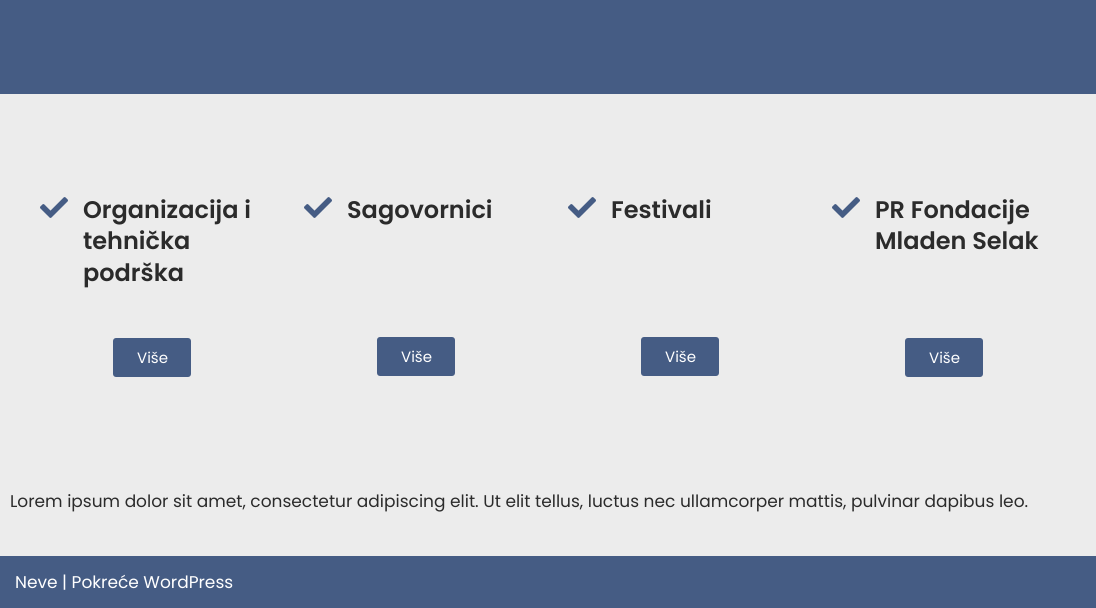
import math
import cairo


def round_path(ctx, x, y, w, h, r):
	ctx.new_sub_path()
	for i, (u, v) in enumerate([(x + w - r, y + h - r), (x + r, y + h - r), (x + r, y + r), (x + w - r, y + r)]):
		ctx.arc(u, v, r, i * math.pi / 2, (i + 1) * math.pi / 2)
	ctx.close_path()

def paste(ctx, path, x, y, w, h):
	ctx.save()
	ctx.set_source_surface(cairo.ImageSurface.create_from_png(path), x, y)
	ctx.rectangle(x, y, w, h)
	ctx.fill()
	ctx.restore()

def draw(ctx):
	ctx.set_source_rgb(0.925, 0.925, 0.925)
	ctx.paint()
	ctx.set_source_rgb(0.271, 0.361, 0.518)
	ctx.rectangle(0, 0, 1096, 94)
	ctx.fill()
	paste(ctx, 'media/1.png', 40, 197, 28, 21)
	ctx.select_font_face('Poppins SemiBold')
	ctx.set_font_size(24)
	ctx.set_source_rgb(0.169, 0.169, 0.169)
	for x, y, s in [
		(83, 218, 'Organizacija i'),
		(83, 249, 'tehnička'),
		(83, 281, 'podrška'),
	]:
		ctx.move_to(x, y)
		ctx.show_text(s)
	ctx.set_source_rgb(0.271, 0.361, 0.518)
	round_path(ctx, 113, 338, 78, 39, 3)
	ctx.fill()
	ctx.select_font_face('Poppins')
	ctx.set_font_size(15)
	ctx.set_source_rgb(1, 1, 1)
	ctx.move_to(137, 363)
	ctx.show_text('Više')
	paste(ctx, 'media/1.png', 304, 197, 28, 21)
	ctx.select_font_face('Poppins SemiBold')
	ctx.set_font_size(24)
	ctx.set_source_rgb(0.169, 0.169, 0.169)
	ctx.move_to(347, 218)
	ctx.show_text('Sagovornici')
	ctx.set_source_rgb(0.271, 0.361, 0.518)
	round_path(ctx, 377, 337, 78, 39, 3)
	ctx.fill()
	ctx.select_font_face('Poppins')
	ctx.set_font_size(15)
	ctx.set_source_rgb(1, 1, 1)
	ctx.move_to(401, 362)
	ctx.show_text('Više')
	paste(ctx, 'media/1.png', 568, 197, 28, 21)
	ctx.select_font_face('Poppins SemiBold')
	ctx.set_font_size(24)
	ctx.set_source_rgb(0.169, 0.169, 0.169)
	ctx.move_to(611, 218)
	ctx.show_text('Festivali')
	ctx.set_source_rgb(0.271, 0.361, 0.518)
	round_path(ctx, 641, 337, 78, 39, 3)
	ctx.fill()
	ctx.select_font_face('Poppins')
	ctx.set_font_size(15)
	ctx.set_source_rgb(1, 1, 1)
	ctx.move_to(665, 362)
	ctx.show_text('Više')
	paste(ctx, 'media/1.png', 832, 197, 28, 21)
	ctx.select_font_face('Poppins SemiBold')
	ctx.set_font_size(24)
	ctx.set_source_rgb(0.169, 0.169, 0.169)
	ctx.move_to(875, 218)
	ctx.show_text('PR Fondacije')
	ctx.move_to(875, 249)
	ctx.show_text('Mladen Selak')
	ctx.set_source_rgb(0.271, 0.361, 0.518)
	round_path(ctx, 905, 338, 78, 39, 3)
	ctx.fill()
	ctx.select_font_face('Poppins')
	ctx.set_font_size(15)
	ctx.set_source_rgb(1, 1, 1)
	ctx.move_to(929, 363)
	ctx.show_text('Više')
	ctx.set_font_size(17)
	ctx.set_source_rgb(0.169, 0.169, 0.169)
	ctx.move_to(10, 507)
	ctx.show_text('Lorem ipsum dolor sit amet, consectetur adipiscing elit. Ut elit tellus, luctus nec ullamcorper mattis, pulvinar dapibus leo.')
	ctx.set_source_rgb(0.271, 0.361, 0.518)
	ctx.rectangle(0, 556, 1096, 52)
	ctx.fill()
	ctx.set_source_rgb(1, 1, 1)
	ctx.move_to(15, 588)
	ctx.show_text('Neve | Pokreće WordPress')


surface = cairo.ImageSurface(cairo.FORMAT_RGB24, 1096, 608)
ctx = cairo.Context(surface)
options = cairo.FontOptions()
options.set_hint_metrics(cairo.HINT_METRICS_OFF)
options.set_hint_style(cairo.HINT_STYLE_NONE)
ctx.set_font_options(options)
ctx.set_miter_limit(4)
draw(ctx)
surface.write_to_png('image.png')
